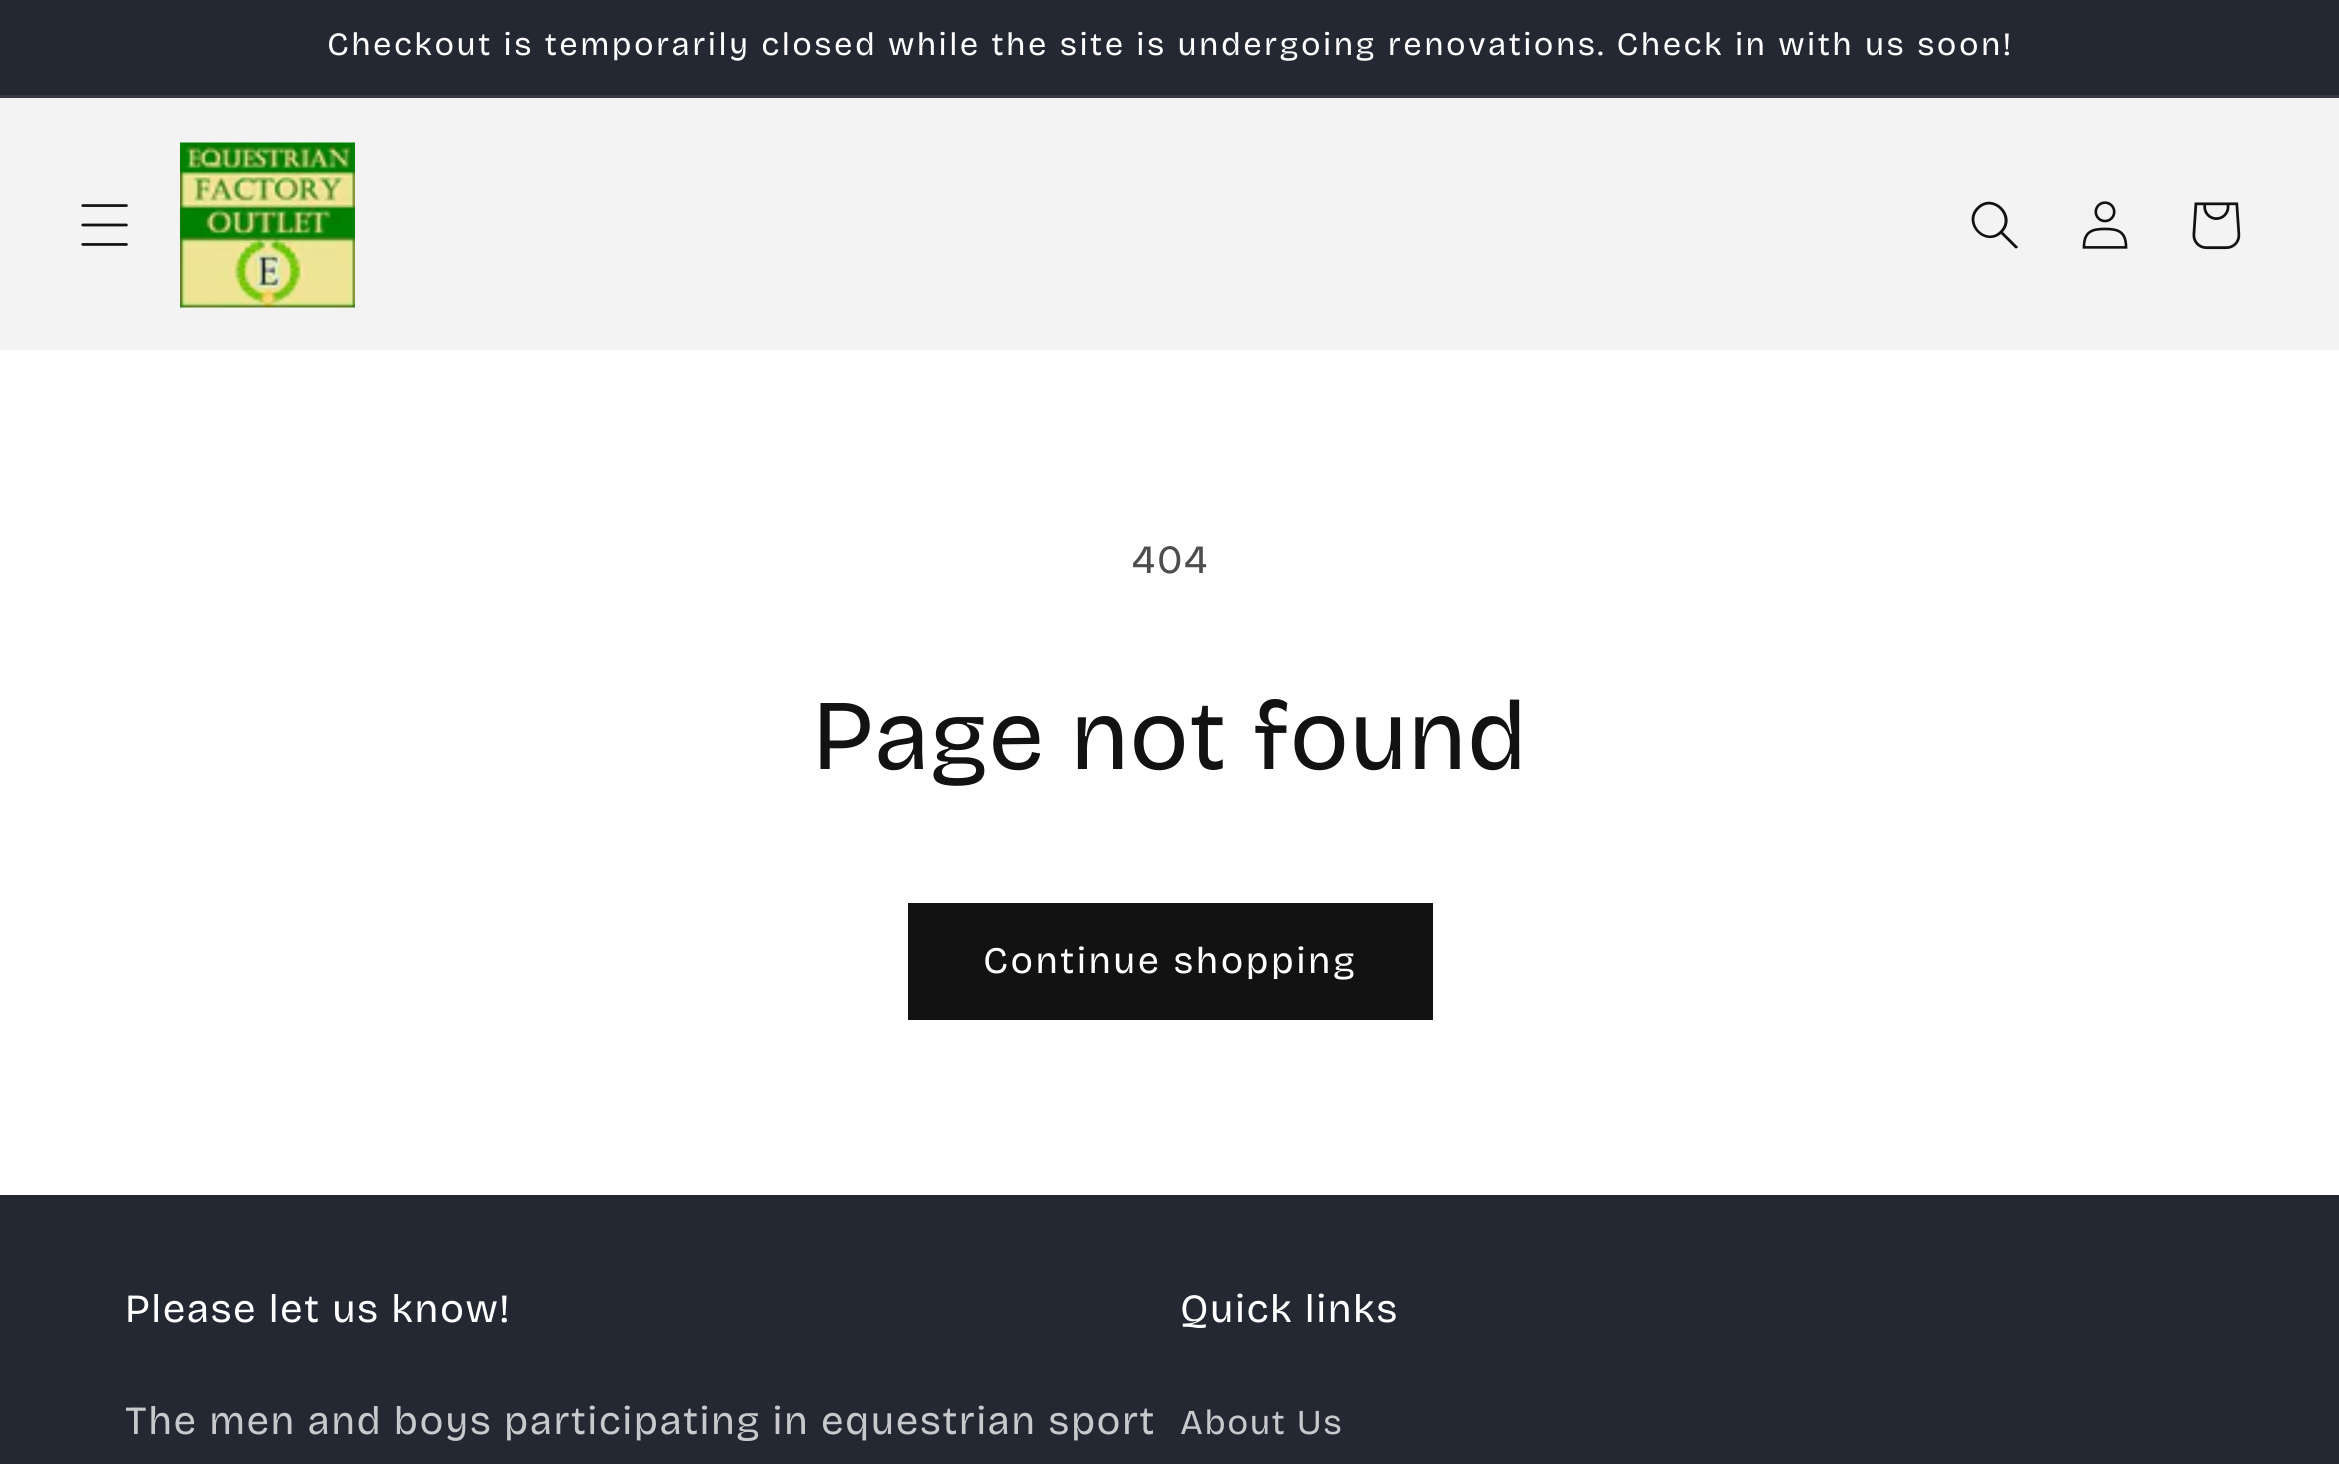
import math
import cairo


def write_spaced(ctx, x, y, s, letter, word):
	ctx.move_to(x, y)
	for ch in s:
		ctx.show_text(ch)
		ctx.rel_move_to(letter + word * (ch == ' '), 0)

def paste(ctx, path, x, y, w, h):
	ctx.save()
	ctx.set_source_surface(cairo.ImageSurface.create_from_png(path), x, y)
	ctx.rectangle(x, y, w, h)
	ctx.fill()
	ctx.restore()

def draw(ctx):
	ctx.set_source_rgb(1, 1, 1)
	ctx.paint()
	ctx.set_source_rgb(0.141, 0.157, 0.2)
	ctx.rectangle(0, 0, 2339, 95)
	ctx.fill()
	ctx.set_source_rgb(0.212, 0.224, 0.263)
	ctx.rectangle(0, 95, 2339, 3)
	ctx.fill()
	ctx.select_font_face('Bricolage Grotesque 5')
	ctx.set_font_size(32.5)
	ctx.set_source_rgb(1, 1, 1)
	write_spaced(ctx, 327, 55, 'Checkout is temporarily closed while the site is undergoing renovations. Check in with us soon!', 2.5, 0)
	ctx.set_source_rgb(0.953, 0.953, 0.953)
	ctx.rectangle(0, 98, 2339, 252)
	ctx.fill()
	paste(ctx, 'media/1.png', 81, 204, 47, 42)
	paste(ctx, 'media/2.png', 180, 142, 175, 166)
	ctx.set_source_rgb(0.071, 0.071, 0.071)
	ctx.set_fill_rule(cairo.FILL_RULE_EVEN_ODD)
	ctx.new_path()
	ctx.move_to(2000, 231)
	ctx.curve_to(1986, 245, 1965, 223, 1979, 209)
	ctx.curve_to(1993, 195, 2014, 217, 2000, 231)
	ctx.move_to(2001, 234)
	ctx.curve_to(1984, 248, 1961, 223, 1977, 207)
	ctx.curve_to(1993, 191, 2018, 215, 2003, 232)
	ctx.line_to(2018, 247)
	ctx.curve_to(2018, 248, 2016, 249, 2015, 248)
	ctx.close_path()
	ctx.fill()
	paste(ctx, 'media/3.png', 2082, 201, 46, 48)
	paste(ctx, 'media/4.png', 2192, 202, 49, 48)
	ctx.select_font_face('Bricolage Grotesque')
	ctx.set_font_size(40)
	ctx.set_source_rgb(0.302, 0.302, 0.302)
	write_spaced(ctx, 1132, 573, '404', 1.5, 0)
	ctx.select_font_face('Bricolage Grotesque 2')
	ctx.set_font_size(100)
	ctx.set_source_rgb(0.071, 0.071, 0.071)
	write_spaced(ctx, 813, 769, 'Page not found', 1.5, 0)
	ctx.rectangle(908, 903, 525, 117)
	ctx.fill()
	ctx.select_font_face('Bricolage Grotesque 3')
	ctx.set_font_size(37.5)
	ctx.set_source_rgb(1, 1, 1)
	write_spaced(ctx, 983, 973, 'Continue shopping', 2.5, 0)
	ctx.set_source_rgb(0.141, 0.157, 0.2)
	ctx.rectangle(0, 1195, 2339, 269)
	ctx.fill()
	ctx.select_font_face('Bricolage Grotesque')
	ctx.set_font_size(40)
	ctx.set_source_rgb(1, 1, 1)
	write_spaced(ctx, 125, 1322, 'Please let us know!', 1.5, 0)
	ctx.set_source_rgb(0.784, 0.788, 0.8)
	write_spaced(ctx, 125, 1434, 'The men and boys participating in equestrian sport', 1.5, 0)
	ctx.set_source_rgb(1, 1, 1)
	write_spaced(ctx, 1180, 1322, 'Quick links', 1.5, 0)
	ctx.select_font_face('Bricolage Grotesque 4')
	ctx.set_font_size(35)
	ctx.set_source_rgb(0.784, 0.788, 0.8)
	write_spaced(ctx, 1180, 1434, 'About Us', 1.5, 0)


surface = cairo.ImageSurface(cairo.FORMAT_RGB24, 2339, 1464)
ctx = cairo.Context(surface)
options = cairo.FontOptions()
options.set_hint_metrics(cairo.HINT_METRICS_OFF)
options.set_hint_style(cairo.HINT_STYLE_NONE)
ctx.set_font_options(options)
ctx.set_miter_limit(4)
draw(ctx)
surface.write_to_png('image.png')
